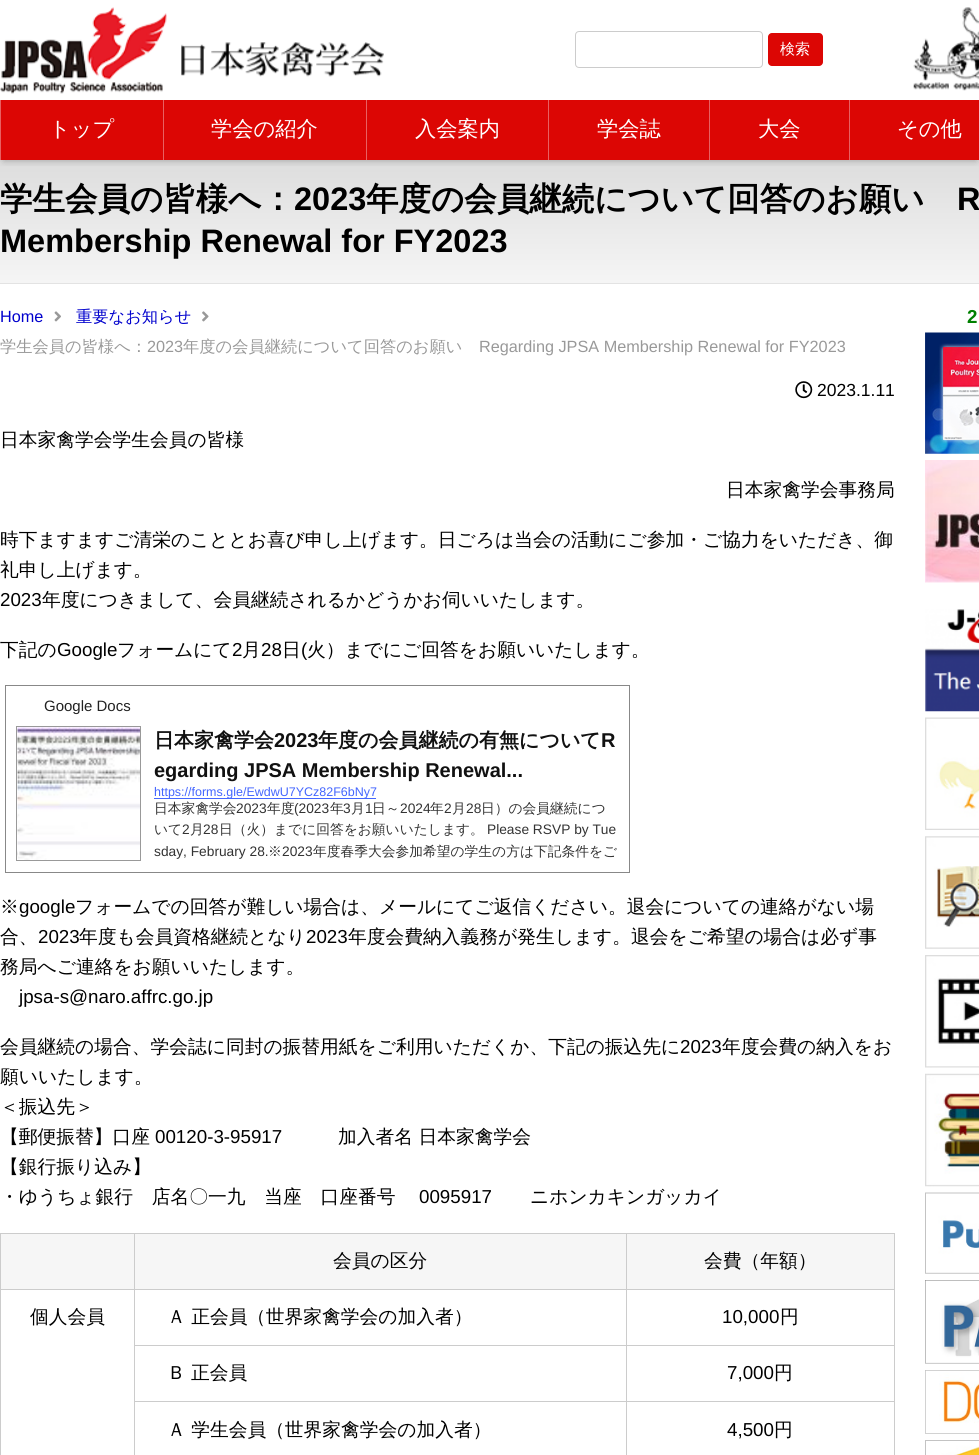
import math
import cairo


def round_path(ctx, x, y, w, h, r):
	ctx.new_sub_path()
	for i, (u, v) in enumerate([(x + w - r, y + h - r), (x + r, y + h - r), (x + r, y + r), (x + w - r, y + r)]):
		ctx.arc(u, v, r, i * math.pi / 2, (i + 1) * math.pi / 2)
	ctx.close_path()

def blur_box(ctx, x, y, w, h, r, blur, alpha):
	ctx.push_group_with_content(cairo.CONTENT_ALPHA)
	ctx.set_operator(cairo.OPERATOR_SOURCE)
	for i in range(15, -16, -2):
		e = blur * i / 6
		if min(w, h) + 2 * e > 0:
			ctx.set_source_rgba(0, 0, 0, alpha * math.erfc((i - 1) / 8.5) / 2)
			round_path(ctx, x - e, y - e, w + 2 * e, h + 2 * e, max(0, min(r + e + blur * .6, min(w, h) / 2 + e)))
			ctx.fill()
	ctx.mask(ctx.pop_group())

def paste(ctx, path, x, y, w, h):
	ctx.save()
	ctx.set_source_surface(cairo.ImageSurface.create_from_png(path), x, y)
	ctx.rectangle(x, y, w, h)
	ctx.fill()
	ctx.restore()

def draw(ctx):
	ctx.set_source_rgb(1, 1, 1)
	ctx.paint()
	gradient = cairo.LinearGradient(490, 160, 490, 283)
	gradient.add_color_stop_rgba(0, 0.867, 0.867, 0.867, 1)
	gradient.add_color_stop_rgba(1, 0.961, 0.961, 0.961, 1)
	ctx.set_source(gradient)
	ctx.rectangle(0, 160, 979, 123)
	ctx.fill()
	ctx.save()
	ctx.rectangle(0, 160, 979, 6)
	ctx.clip()
	ctx.set_source_rgb(0, 0, 0)
	blur_box(ctx, 4, 8, 972, 152, 0, 4, 0.3)
	ctx.restore()
	paste(ctx, 'media/1.png', 0, 7, 384, 87)
	round_path(ctx, 575.5, 31.5, 187, 36, 3.5)
	ctx.set_source_rgb(0.8, 0.8, 0.8)
	ctx.set_line_width(1)
	ctx.stroke()
	ctx.set_source_rgb(0.863, 0.024, 0.016)
	round_path(ctx, 768, 33, 55, 33, 4)
	ctx.fill()
	ctx.select_font_face('WenQuanYi Zen Hei Medium')
	ctx.set_font_size(15)
	ctx.set_source_rgb(1, 1, 1)
	ctx.move_to(780, 54)
	ctx.show_text('検索')
	paste(ctx, 'media/2.png', 913, 7, 66, 84)
	ctx.set_source_rgb(0.863, 0.024, 0.016)
	ctx.rectangle(1, 100, 978, 60)
	ctx.fill()
	ctx.set_source_rgb(0.91, 0.38, 0.38)
	ctx.rectangle(0, 100, 1, 60)
	ctx.fill()
	ctx.set_font_size(21.25)
	ctx.set_source_rgb(1, 1, 1)
	ctx.move_to(49, 136)
	ctx.show_text('トップ')
	ctx.set_source_rgb(0.91, 0.38, 0.38)
	ctx.rectangle(163, 100, 1, 60)
	ctx.fill()
	ctx.set_source_rgb(1, 1, 1)
	ctx.move_to(211, 136)
	ctx.show_text('学会の紹介')
	ctx.set_source_rgb(0.91, 0.38, 0.38)
	ctx.rectangle(366, 100, 1, 60)
	ctx.fill()
	ctx.set_source_rgb(1, 1, 1)
	ctx.move_to(415, 136)
	ctx.show_text('入会案内')
	ctx.set_source_rgb(0.91, 0.38, 0.38)
	ctx.rectangle(548, 100, 1, 60)
	ctx.fill()
	ctx.set_source_rgb(1, 1, 1)
	ctx.move_to(597, 136)
	ctx.show_text('学会誌')
	ctx.set_source_rgb(0.91, 0.38, 0.38)
	ctx.rectangle(709, 100, 1, 60)
	ctx.fill()
	ctx.set_source_rgb(1, 1, 1)
	ctx.move_to(758, 136)
	ctx.show_text('大会')
	ctx.set_source_rgb(0.91, 0.38, 0.38)
	ctx.rectangle(849, 100, 1, 60)
	ctx.fill()
	ctx.set_source_rgb(1, 1, 1)
	ctx.move_to(897, 136)
	ctx.show_text('その他')
	ctx.set_source_rgb(0.89, 0.89, 0.89)
	ctx.rectangle(0, 283, 979, 1)
	ctx.fill()
	ctx.select_font_face('WenQuanYi Zen Hei', cairo.FONT_SLANT_NORMAL, cairo.FONT_WEIGHT_BOLD)
	ctx.set_font_size(32.5)
	ctx.set_source_rgb(0, 0, 0)
	ctx.move_to(0, 210)
	ctx.show_text('学生会員の皆様へ：')
	ctx.select_font_face('Liberation Sans', cairo.FONT_SLANT_NORMAL, cairo.FONT_WEIGHT_BOLD)
	ctx.move_to(294, 210)
	ctx.show_text('2023')
	ctx.select_font_face('WenQuanYi Zen Hei', cairo.FONT_SLANT_NORMAL, cairo.FONT_WEIGHT_BOLD)
	ctx.move_to(366, 210)
	ctx.show_text('年度の会員継続について回答のお願い')
	ctx.select_font_face('Liberation Sans', cairo.FONT_SLANT_NORMAL, cairo.FONT_WEIGHT_BOLD)
	ctx.move_to(957, 210)
	ctx.show_text('R')
	ctx.move_to(0, 252)
	ctx.show_text('Membership Renewal for FY2023')
	ctx.select_font_face('Liberation Sans')
	ctx.set_font_size(16.25)
	ctx.set_source_rgb(0, 0, 0.804)
	ctx.move_to(0, 322)
	ctx.show_text('Home')
	paste(ctx, 'media/3.png', 54, 311, 7, 11)
	ctx.select_font_face('WenQuanYi Zen Hei Medium')
	ctx.move_to(76, 322)
	ctx.show_text('重要なお知らせ')
	paste(ctx, 'media/4.png', 202, 311, 7, 11)
	ctx.set_source_rgb(0.6, 0.6, 0.6)
	ctx.move_to(0, 352)
	ctx.show_text('学生会員の皆様へ：')
	ctx.select_font_face('Liberation Sans')
	ctx.move_to(147, 352)
	ctx.show_text('2023')
	ctx.select_font_face('WenQuanYi Zen Hei Medium')
	ctx.move_to(183, 352)
	ctx.show_text('年度の会員継続について回答のお願い')
	ctx.select_font_face('Liberation Sans')
	ctx.move_to(479, 352)
	ctx.show_text('Regarding JPSA Membership Renewal for FY2023')
	paste(ctx, 'media/5.png', 795, 381, 18, 18)
	ctx.set_font_size(17.5)
	ctx.set_source_rgb(0, 0, 0)
	ctx.move_to(817, 396)
	ctx.show_text('2023.1.11')
	ctx.select_font_face('WenQuanYi Zen Hei Medium')
	ctx.set_font_size(18.75)
	for x, y, s in [
		(0, 446, '日本家禽学会学生会員の皆様'),
		(726, 496, '日本家禽学会事務局'),
		(0, 546, '時下ますますご清栄のこととお喜び申し上げます。日ごろは当会の活動にご参加・ご協力をいただき、御'),
		(0, 576, '礼申し上げます。'),
	]:
		ctx.move_to(x, y)
		ctx.show_text(s)
	ctx.select_font_face('Liberation Sans')
	ctx.move_to(0, 606)
	ctx.show_text('2023')
	ctx.select_font_face('WenQuanYi Zen Hei Medium')
	ctx.move_to(42, 606)
	ctx.show_text('年度につきまして、会員継続されるかどうかお伺いいたします。')
	ctx.move_to(0, 656)
	ctx.show_text('下記の')
	ctx.select_font_face('Liberation Sans')
	ctx.move_to(57, 656)
	ctx.show_text('Google')
	ctx.select_font_face('WenQuanYi Zen Hei Medium')
	ctx.move_to(117, 656)
	ctx.show_text('フォームにて')
	ctx.select_font_face('Liberation Sans')
	ctx.move_to(232, 656)
	ctx.show_text('2')
	ctx.select_font_face('WenQuanYi Zen Hei Medium')
	ctx.move_to(242, 656)
	ctx.show_text('月')
	ctx.select_font_face('Liberation Sans')
	ctx.move_to(261, 656)
	ctx.show_text('28')
	ctx.select_font_face('WenQuanYi Zen Hei Medium')
	ctx.move_to(282, 656)
	ctx.show_text('日')
	ctx.select_font_face('Liberation Sans')
	ctx.move_to(301, 656)
	ctx.show_text('(')
	ctx.select_font_face('WenQuanYi Zen Hei Medium')
	ctx.move_to(307, 656)
	ctx.show_text('火）までにご回答をお願いいたします。')
	ctx.rectangle(5.5, 685.5, 624, 187)
	ctx.set_source_rgb(0.533, 0.533, 0.533)
	ctx.stroke()
	ctx.select_font_face('Liberation Sans')
	ctx.set_font_size(15)
	ctx.set_source_rgb(0.133, 0.133, 0.133)
	ctx.move_to(44, 711)
	ctx.show_text('Google Docs')
	ctx.rectangle(16.5, 726.5, 124, 134)
	ctx.set_source_rgb(0.6, 0.6, 0.6)
	ctx.stroke()
	paste(ctx, 'media/6.png', 17, 727, 123, 133)
	ctx.select_font_face('WenQuanYi Zen Hei', cairo.FONT_SLANT_NORMAL, cairo.FONT_WEIGHT_BOLD)
	ctx.set_font_size(20)
	ctx.set_source_rgb(0.067, 0.067, 0.067)
	ctx.move_to(154, 747)
	ctx.show_text('日本家禽学会')
	ctx.select_font_face('Liberation Sans', cairo.FONT_SLANT_NORMAL, cairo.FONT_WEIGHT_BOLD)
	ctx.move_to(274, 747)
	ctx.show_text('2023')
	ctx.select_font_face('WenQuanYi Zen Hei', cairo.FONT_SLANT_NORMAL, cairo.FONT_WEIGHT_BOLD)
	ctx.move_to(318, 747)
	ctx.show_text('年度の会員継続の有無について')
	ctx.select_font_face('Liberation Sans', cairo.FONT_SLANT_NORMAL, cairo.FONT_WEIGHT_BOLD)
	ctx.move_to(601, 747)
	ctx.show_text('R')
	ctx.move_to(154, 777)
	ctx.show_text('egarding JPSA Membership Renewal...')
	ctx.set_source_rgb(0.267, 0.4, 1)
	ctx.rectangle(154, 798, 222, 1)
	ctx.fill()
	ctx.select_font_face('Liberation Sans')
	ctx.set_font_size(12.5)
	ctx.move_to(154, 796)
	ctx.show_text('https://forms.gle/EwdwU7YCz82F6bNy7')
	ctx.select_font_face('WenQuanYi Zen Hei Medium')
	ctx.set_font_size(13.75)
	ctx.set_source_rgb(0.2, 0.2, 0.2)
	ctx.move_to(154, 813)
	ctx.show_text('日本家禽学会')
	ctx.select_font_face('Liberation Sans')
	ctx.move_to(236, 813)
	ctx.show_text('2023')
	ctx.select_font_face('WenQuanYi Zen Hei Medium')
	ctx.move_to(267, 813)
	ctx.show_text('年度')
	ctx.select_font_face('Liberation Sans')
	ctx.move_to(294, 813)
	ctx.show_text('(2023')
	ctx.select_font_face('WenQuanYi Zen Hei Medium')
	ctx.move_to(330, 813)
	ctx.show_text('年')
	ctx.select_font_face('Liberation Sans')
	ctx.move_to(343, 813)
	ctx.show_text('3')
	ctx.select_font_face('WenQuanYi Zen Hei Medium')
	ctx.move_to(351, 813)
	ctx.show_text('月')
	ctx.select_font_face('Liberation Sans')
	ctx.move_to(365, 813)
	ctx.show_text('1')
	ctx.select_font_face('WenQuanYi Zen Hei Medium')
	ctx.move_to(372, 813)
	ctx.show_text('日～')
	ctx.select_font_face('Liberation Sans')
	ctx.move_to(400, 813)
	ctx.show_text('2024')
	ctx.select_font_face('WenQuanYi Zen Hei Medium')
	ctx.move_to(430, 813)
	ctx.show_text('年')
	ctx.select_font_face('Liberation Sans')
	ctx.move_to(444, 813)
	ctx.show_text('2')
	ctx.select_font_face('WenQuanYi Zen Hei Medium')
	ctx.move_to(452, 813)
	ctx.show_text('月')
	ctx.select_font_face('Liberation Sans')
	ctx.move_to(466, 813)
	ctx.show_text('28')
	ctx.select_font_face('WenQuanYi Zen Hei Medium')
	ctx.move_to(481, 813)
	ctx.show_text('日）の会員継続につ')
	ctx.move_to(154, 834)
	ctx.show_text('いて')
	ctx.select_font_face('Liberation Sans')
	ctx.move_to(182, 834)
	ctx.show_text('2')
	ctx.select_font_face('WenQuanYi Zen Hei Medium')
	ctx.move_to(190, 834)
	ctx.show_text('月')
	ctx.select_font_face('Liberation Sans')
	ctx.move_to(203, 834)
	ctx.show_text('28')
	ctx.select_font_face('WenQuanYi Zen Hei Medium')
	ctx.move_to(219, 834)
	ctx.show_text('日（火）までに回答をお願いいたします。')
	ctx.select_font_face('Liberation Sans')
	ctx.move_to(487, 834)
	ctx.show_text('Please RSVP by Tue')
	ctx.move_to(154, 856)
	ctx.show_text('sday, February 28.')
	ctx.select_font_face('WenQuanYi Zen Hei Medium')
	ctx.move_to(268, 856)
	ctx.show_text('※')
	ctx.select_font_face('Liberation Sans')
	ctx.move_to(282, 856)
	ctx.show_text('2023')
	ctx.select_font_face('WenQuanYi Zen Hei Medium')
	ctx.move_to(313, 856)
	ctx.show_text('年度春季大会参加希望の学生の方は下記条件をご')
	ctx.set_font_size(18.75)
	ctx.set_source_rgb(0, 0, 0)
	ctx.move_to(0, 913)
	ctx.show_text('※')
	ctx.select_font_face('Liberation Sans')
	ctx.move_to(19, 913)
	ctx.show_text('google')
	ctx.select_font_face('WenQuanYi Zen Hei Medium')
	ctx.move_to(75, 913)
	ctx.show_text('フォームでの回答が難しい場合は、メールにてご返信ください。退会についての連絡がない場')
	ctx.move_to(0, 943)
	ctx.show_text('合、')
	ctx.select_font_face('Liberation Sans')
	ctx.move_to(38, 943)
	ctx.show_text('2023')
	ctx.select_font_face('WenQuanYi Zen Hei Medium')
	ctx.move_to(79, 943)
	ctx.show_text('年度も会員資格継続となり')
	ctx.select_font_face('Liberation Sans')
	ctx.move_to(306, 943)
	ctx.show_text('2023')
	ctx.select_font_face('WenQuanYi Zen Hei Medium')
	ctx.move_to(348, 943)
	ctx.show_text('年度会費納入義務が発生します。退会をご希望の場合は必ず事')
	ctx.move_to(0, 973)
	ctx.show_text('務局へご連絡をお願いいたします。')
	ctx.select_font_face('Liberation Sans')
	ctx.move_to(19, 1003)
	ctx.show_text('jpsa-s@naro.affrc.go.jp')
	ctx.select_font_face('WenQuanYi Zen Hei Medium')
	ctx.move_to(0, 1053)
	ctx.show_text('会員継続の場合、学会誌に同封の振替用紙をご利用いただくか、下記の振込先に')
	ctx.select_font_face('Liberation Sans')
	ctx.move_to(680, 1053)
	ctx.show_text('2023')
	ctx.select_font_face('WenQuanYi Zen Hei Medium')
	for x, y, s in [
		(722, 1053, '年度会費の納入をお'),
		(0, 1083, '願いいたします。'),
		(0, 1113, '＜振込先＞'),
		(0, 1143, '【郵便振替】口座'),
	]:
		ctx.move_to(x, y)
		ctx.show_text(s)
	ctx.select_font_face('Liberation Sans')
	ctx.move_to(155, 1143)
	ctx.show_text('00120-3-95917')
	ctx.select_font_face('WenQuanYi Zen Hei Medium')
	for x, y, s in [
		(338, 1143, '加入者名 日本家禽学会'),
		(0, 1173, '【銀行振り込み】'),
		(0, 1203, '・ゆうちょ銀行　店名〇一九　当座　口座番号'),
	]:
		ctx.move_to(x, y)
		ctx.show_text(s)
	ctx.select_font_face('Liberation Sans')
	ctx.move_to(419, 1203)
	ctx.show_text('0095917')
	ctx.select_font_face('WenQuanYi Zen Hei Medium')
	ctx.move_to(530, 1203)
	ctx.show_text('ニホンカキンガッカイ')
	ctx.set_source_rgb(0.8, 0.8, 0.8)
	ctx.rectangle(0, 1233, 895, 1)
	ctx.rectangle(894, 1233, 1, 222)
	ctx.rectangle(0, 1233, 1, 222)
	ctx.fill()
	ctx.set_source_rgb(0.961, 0.961, 0.961)
	ctx.rectangle(1, 1234, 133, 55)
	ctx.rectangle(135, 1234, 491, 55)
	ctx.fill()
	ctx.set_source_rgb(0.8, 0.8, 0.8)
	ctx.rectangle(626, 1289, 269, 1)
	ctx.rectangle(626, 1345, 269, 1)
	ctx.rectangle(626, 1401, 269, 1)
	ctx.rectangle(626, 1401, 1, 54)
	ctx.rectangle(134, 1401, 494, 1)
	ctx.rectangle(626, 1345, 1, 58)
	ctx.rectangle(134, 1345, 494, 1)
	ctx.rectangle(626, 1289, 1, 57)
	ctx.rectangle(134, 1289, 494, 1)
	ctx.rectangle(134, 1401, 1, 54)
	ctx.rectangle(134, 1345, 1, 58)
	ctx.rectangle(134, 1289, 1, 57)
	ctx.rectangle(0, 1289, 135, 1)
	ctx.rectangle(134, 1233, 1, 57)
	ctx.fill()
	ctx.set_source_rgb(0, 0, 0)
	ctx.move_to(333, 1267)
	ctx.show_text('会員の区分')
	ctx.set_source_rgb(0.961, 0.961, 0.961)
	ctx.rectangle(627, 1234, 267, 55)
	ctx.fill()
	ctx.set_source_rgb(0.8, 0.8, 0.8)
	ctx.rectangle(626, 1233, 1, 57)
	ctx.fill()
	ctx.set_source_rgb(0, 0, 0)
	for x, y, s in [
		(704, 1267, '会費（年額）'),
		(30, 1323, '個人会員'),
		(167, 1323, 'Ａ 正会員'),
		(247, 1323, '（世界家禽学会の加入者）'),
	]:
		ctx.move_to(x, y)
		ctx.show_text(s)
	ctx.select_font_face('Liberation Sans')
	ctx.move_to(722, 1323)
	ctx.show_text('10,000')
	ctx.select_font_face('WenQuanYi Zen Hei Medium')
	for x, y, s in [
		(780, 1323, '円'),
		(167, 1379, 'Ｂ'),
		(191, 1379, '正会員'),
	]:
		ctx.move_to(x, y)
		ctx.show_text(s)
	ctx.select_font_face('Liberation Sans')
	ctx.move_to(727, 1379)
	ctx.show_text('7,000')
	ctx.select_font_face('WenQuanYi Zen Hei Medium')
	for x, y, s in [
		(774, 1379, '円'),
		(167, 1436, 'Ａ 学生会員'),
		(266, 1436, '（世界家禽学会の加入者）'),
	]:
		ctx.move_to(x, y)
		ctx.show_text(s)
	ctx.select_font_face('Liberation Sans')
	ctx.move_to(727, 1436)
	ctx.show_text('4,500')
	ctx.select_font_face('WenQuanYi Zen Hei Medium')
	ctx.move_to(774, 1436)
	ctx.show_text('円')
	ctx.select_font_face('Liberation Sans', cairo.FONT_SLANT_NORMAL, cairo.FONT_WEIGHT_BOLD)
	ctx.set_source_rgb(0, 0.502, 0)
	ctx.move_to(967, 323)
	ctx.show_text('2')
	paste(ctx, 'media/7.png', 925, 332, 54, 122)
	paste(ctx, 'media/8.png', 925, 460, 54, 123)
	paste(ctx, 'media/9.png', 925, 609, 54, 103)
	paste(ctx, 'media/10.png', 925, 717, 54, 113)
	paste(ctx, 'media/11.png', 925, 836, 54, 113)
	paste(ctx, 'media/12.png', 925, 955, 54, 113)
	paste(ctx, 'media/13.png', 925, 1073, 54, 114)
	paste(ctx, 'media/14.png', 925, 1192, 54, 82)
	paste(ctx, 'media/15.png', 925, 1280, 54, 84)
	paste(ctx, 'media/16.png', 925, 1370, 54, 64)
	paste(ctx, 'media/17.png', 925, 1440, 54, 15)


surface = cairo.ImageSurface(cairo.FORMAT_RGB24, 979, 1455)
ctx = cairo.Context(surface)
options = cairo.FontOptions()
options.set_hint_metrics(cairo.HINT_METRICS_OFF)
options.set_hint_style(cairo.HINT_STYLE_NONE)
ctx.set_font_options(options)
ctx.set_miter_limit(4)
draw(ctx)
surface.write_to_png('image.png')
